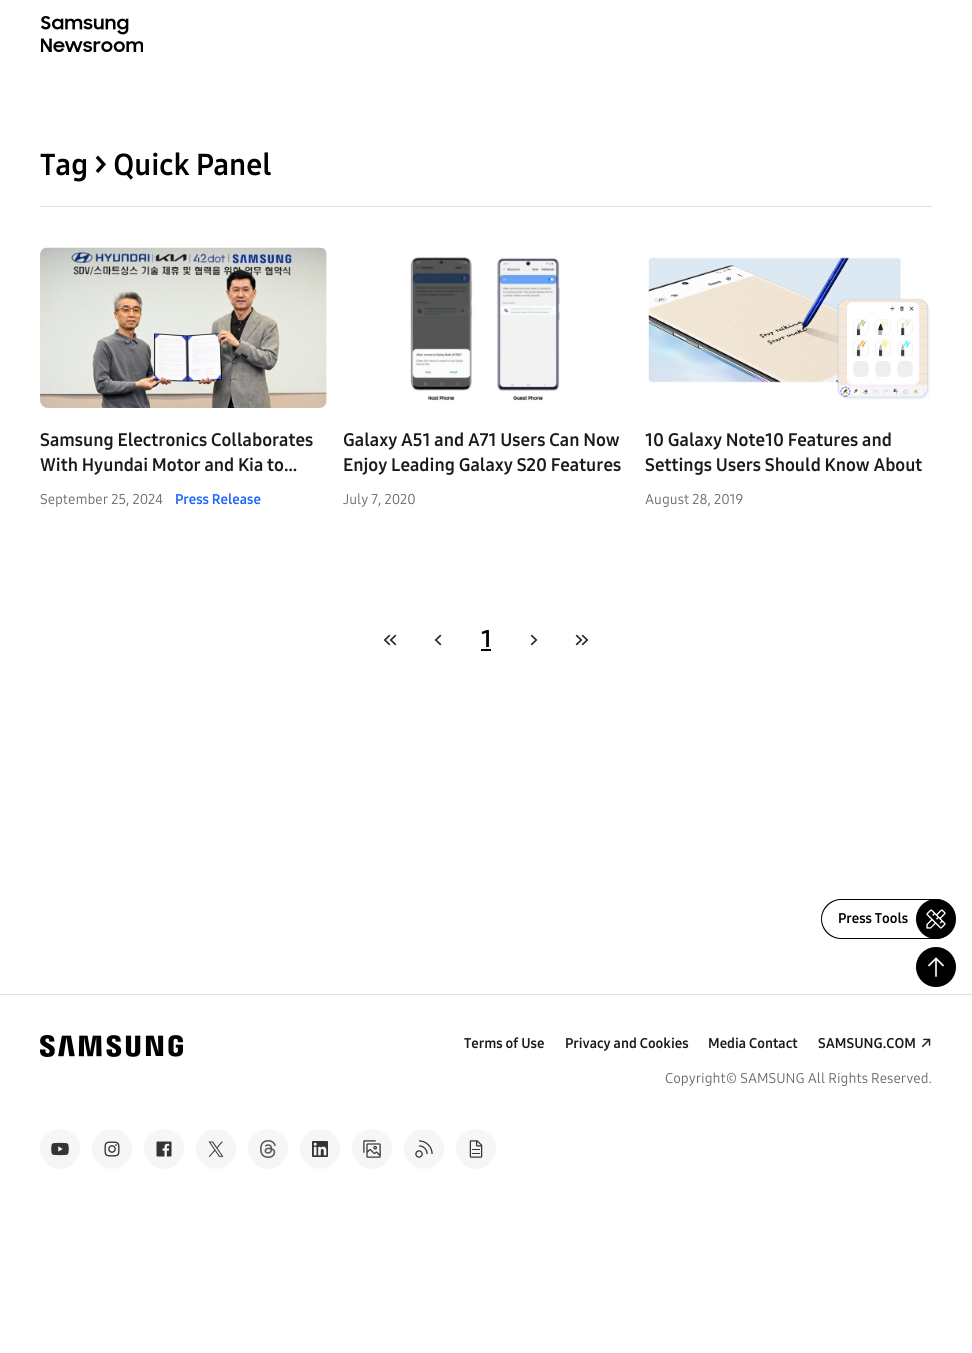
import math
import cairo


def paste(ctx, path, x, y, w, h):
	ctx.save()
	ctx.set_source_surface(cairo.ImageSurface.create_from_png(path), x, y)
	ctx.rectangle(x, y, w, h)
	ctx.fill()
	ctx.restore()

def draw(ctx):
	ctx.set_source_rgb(1, 1, 1)
	ctx.paint()
	paste(ctx, 'media/1.png', 41, 16, 102, 36)
	ctx.set_source_rgb(0.878, 0.878, 0.878)
	ctx.rectangle(40, 206, 892, 1)
	ctx.fill()
	ctx.select_font_face('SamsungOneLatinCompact', cairo.FONT_SLANT_NORMAL, cairo.FONT_WEIGHT_BOLD)
	ctx.set_font_size(30)
	ctx.set_source_rgb(0, 0, 0)
	ctx.move_to(40, 175)
	ctx.show_text('Tag > Quick Panel')
	paste(ctx, 'media/2.png', 40, 247, 287, 161)
	ctx.set_font_size(18)
	ctx.set_source_rgb(0.102, 0.102, 0.102)
	ctx.move_to(40, 446)
	ctx.show_text('Samsung Electronics Collaborates')
	ctx.move_to(40, 471)
	ctx.show_text('With Hyundai Motor and Kia to…')
	ctx.select_font_face('SamsungOneLatinCompact')
	ctx.set_font_size(14)
	ctx.set_source_rgb(0.4, 0.4, 0.4)
	ctx.move_to(40, 504)
	ctx.show_text('September 25, 2024')
	ctx.select_font_face('SamsungOneLatinCompact', cairo.FONT_SLANT_NORMAL, cairo.FONT_WEIGHT_BOLD)
	ctx.set_source_rgb(0.118, 0.392, 0.98)
	ctx.move_to(175, 504)
	ctx.show_text('Press Release')
	paste(ctx, 'media/3.png', 410, 256, 150, 145)
	ctx.set_font_size(18)
	ctx.set_source_rgb(0.102, 0.102, 0.102)
	ctx.move_to(343, 446)
	ctx.show_text('Galaxy A51 and A71 Users Can Now')
	ctx.move_to(343, 471)
	ctx.show_text('Enjoy Leading Galaxy S20 Features')
	ctx.select_font_face('SamsungOneLatinCompact')
	ctx.set_font_size(14)
	ctx.set_source_rgb(0.4, 0.4, 0.4)
	ctx.move_to(343, 504)
	ctx.show_text('July 7, 2020')
	paste(ctx, 'media/4.png', 648, 257, 282, 143)
	ctx.select_font_face('SamsungOneLatinCompact', cairo.FONT_SLANT_NORMAL, cairo.FONT_WEIGHT_BOLD)
	ctx.set_font_size(18)
	ctx.set_source_rgb(0.102, 0.102, 0.102)
	ctx.move_to(645, 446)
	ctx.show_text('10 Galaxy Note10 Features and')
	ctx.move_to(645, 471)
	ctx.show_text('Settings Users Should Know About')
	ctx.select_font_face('SamsungOneLatinCompact')
	ctx.set_font_size(14)
	ctx.set_source_rgb(0.4, 0.4, 0.4)
	ctx.move_to(645, 504)
	ctx.show_text('August 28, 2019')
	paste(ctx, 'media/5.png', 383, 634, 14, 12)
	paste(ctx, 'media/6.png', 434, 634, 8, 12)
	ctx.select_font_face('SamsungOneLatinCompact', cairo.FONT_SLANT_NORMAL, cairo.FONT_WEIGHT_BOLD)
	ctx.set_font_size(24)
	ctx.set_source_rgb(0, 0, 0)
	ctx.move_to(481, 647)
	ctx.show_text('1')
	ctx.rectangle(481, 649, 10, 2)
	ctx.fill()
	paste(ctx, 'media/7.png', 530, 634, 8, 12)
	paste(ctx, 'media/8.png', 575, 634, 14, 12)
	ctx.set_fill_rule(cairo.FILL_RULE_EVEN_ODD)
	ctx.new_path()
	ctx.move_to(841, 899)
	ctx.line_to(936, 899)
	ctx.curve_to(947, 899, 956, 908, 956, 919)
	ctx.curve_to(956, 930, 947, 939, 936, 939)
	ctx.line_to(841, 939)
	ctx.curve_to(830, 939, 821, 930, 821, 919)
	ctx.curve_to(821, 908, 830, 899, 841, 899)
	ctx.close_path()
	ctx.move_to(841, 900)
	ctx.line_to(936, 900)
	ctx.curve_to(947, 900, 956, 909, 956, 919)
	ctx.curve_to(956, 929, 947, 938, 936, 938)
	ctx.line_to(841, 938)
	ctx.curve_to(831, 938, 822, 929, 822, 919)
	ctx.curve_to(822, 909, 831, 900, 841, 900)
	ctx.close_path()
	ctx.fill()
	ctx.set_font_size(14)
	ctx.move_to(838, 923)
	ctx.show_text('Press Tools')
	ctx.new_path()
	ctx.arc(936, 919, 20, 0, 2 * math.pi)
	ctx.fill()
	paste(ctx, 'media/9.png', 926, 909, 20, 20)
	ctx.arc(936, 967, 20, 0, 2 * math.pi)
	ctx.fill()
	paste(ctx, 'media/10.png', 928, 957, 16, 20)
	ctx.set_source_rgb(0.878, 0.878, 0.878)
	ctx.rectangle(0, 994, 972, 1)
	ctx.fill()
	paste(ctx, 'media/11.png', 40, 1035, 143, 22)
	ctx.set_source_rgb(0.102, 0.102, 0.102)
	for x, y, s in [
		(464, 1048, 'Terms of Use'),
		(565, 1048, 'Privacy and Cookies'),
		(708, 1048, 'Media Contact'),
		(818, 1048, 'SAMSUNG.COM'),
	]:
		ctx.move_to(x, y)
		ctx.show_text(s)
	paste(ctx, 'media/12.png', 921, 1038, 10, 10)
	ctx.select_font_face('SamsungOneLatinCompact')
	ctx.set_source_rgb(0.4, 0.4, 0.4)
	ctx.move_to(665, 1083)
	ctx.show_text('Copyright© SAMSUNG All Rights Reserved.')
	ctx.set_source_rgb(0.961, 0.961, 0.961)
	ctx.new_path()
	ctx.arc(60, 1149, 20, 0, 2 * math.pi)
	ctx.fill()
	paste(ctx, 'media/13.png', 51, 1142, 18, 14)
	ctx.arc(112, 1149, 20, 0, 2 * math.pi)
	ctx.fill()
	paste(ctx, 'media/14.png', 104, 1141, 16, 16)
	ctx.arc(164, 1149, 20, 0, 2 * math.pi)
	ctx.fill()
	paste(ctx, 'media/15.png', 156, 1141, 16, 16)
	ctx.arc(216, 1149, 20, 0, 2 * math.pi)
	ctx.fill()
	paste(ctx, 'media/16.png', 208, 1141, 16, 16)
	ctx.arc(268, 1149, 20, 0, 2 * math.pi)
	ctx.fill()
	paste(ctx, 'media/17.png', 260, 1140, 16, 18)
	ctx.arc(320, 1149, 20, 0, 2 * math.pi)
	ctx.fill()
	paste(ctx, 'media/18.png', 312, 1141, 16, 16)
	ctx.arc(372, 1149, 20, 0, 2 * math.pi)
	ctx.fill()
	paste(ctx, 'media/19.png', 363, 1140, 18, 18)
	ctx.arc(424, 1149, 20, 0, 2 * math.pi)
	ctx.fill()
	paste(ctx, 'media/20.png', 415, 1140, 18, 18)
	ctx.arc(476, 1149, 20, 0, 2 * math.pi)
	ctx.fill()
	paste(ctx, 'media/21.png', 469, 1140, 14, 18)


surface = cairo.ImageSurface(cairo.FORMAT_RGB24, 972, 1353)
ctx = cairo.Context(surface)
options = cairo.FontOptions()
options.set_hint_metrics(cairo.HINT_METRICS_OFF)
options.set_hint_style(cairo.HINT_STYLE_NONE)
ctx.set_font_options(options)
ctx.set_miter_limit(4)
draw(ctx)
surface.write_to_png('image.png')
